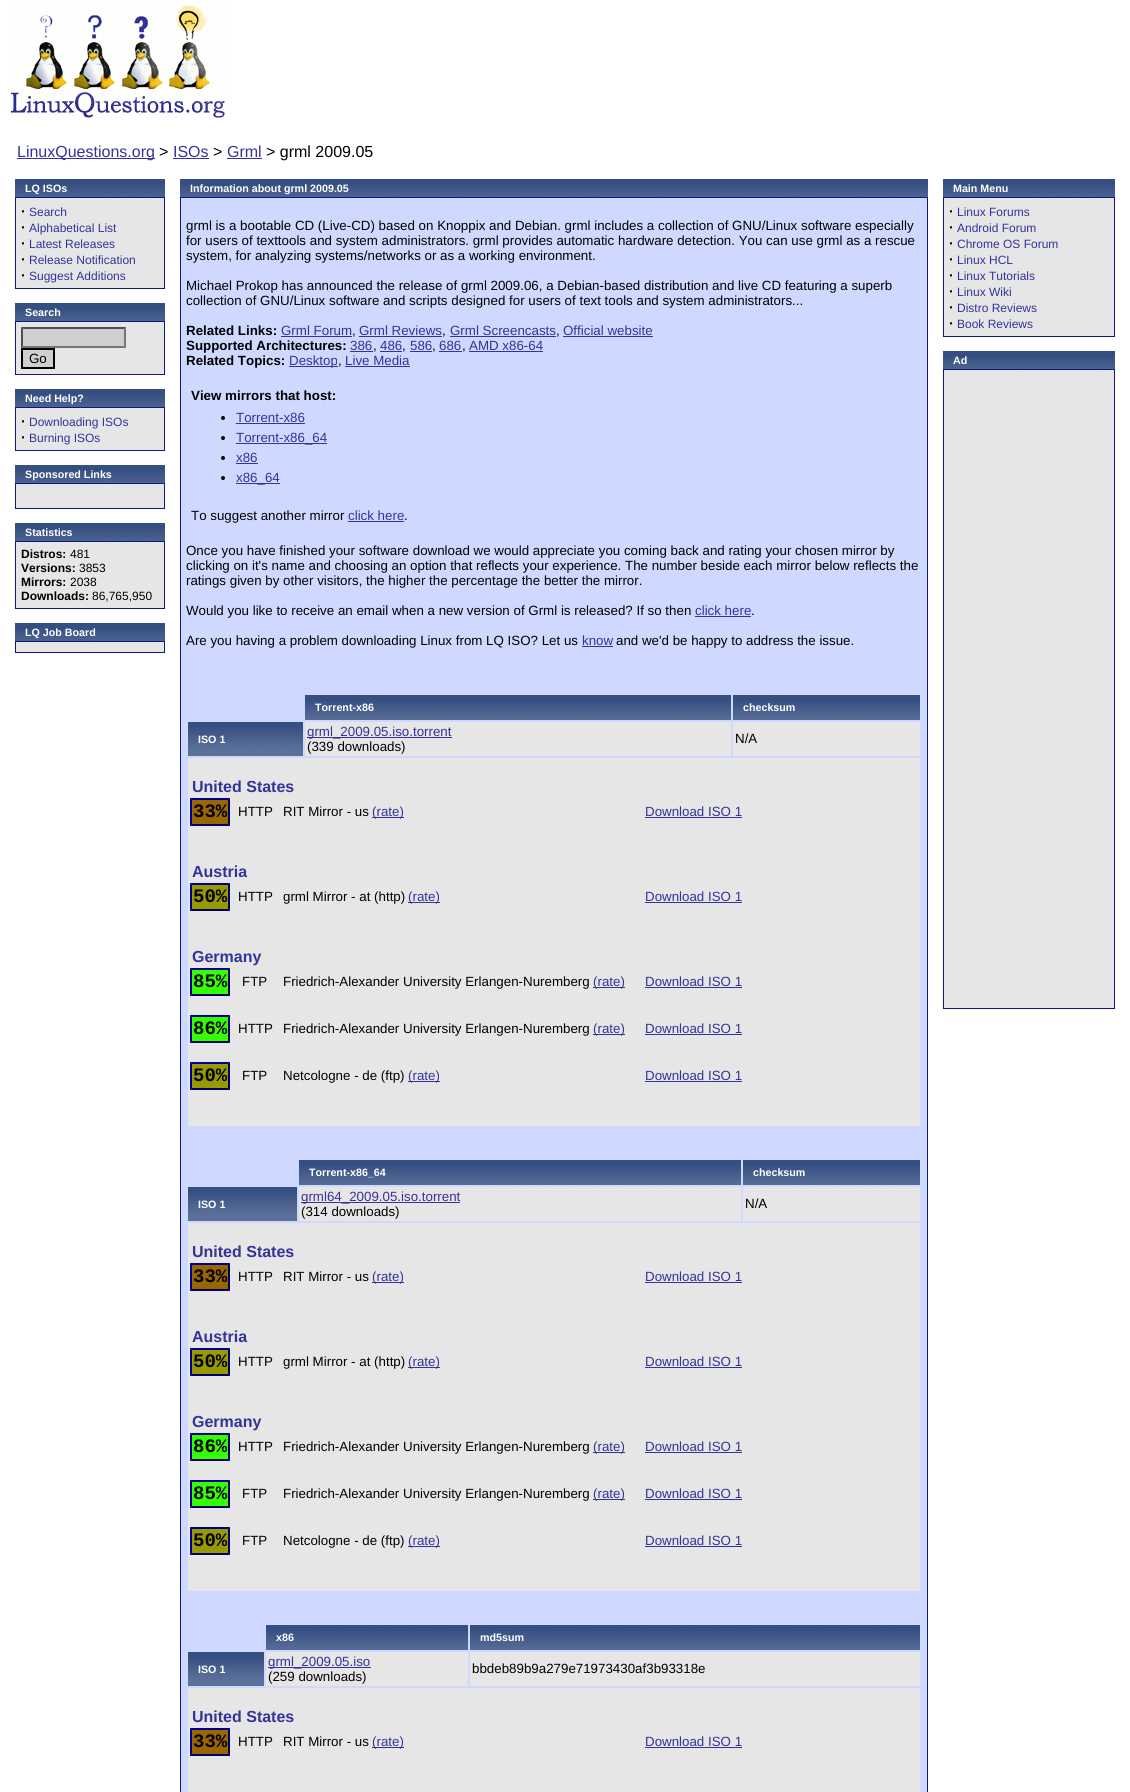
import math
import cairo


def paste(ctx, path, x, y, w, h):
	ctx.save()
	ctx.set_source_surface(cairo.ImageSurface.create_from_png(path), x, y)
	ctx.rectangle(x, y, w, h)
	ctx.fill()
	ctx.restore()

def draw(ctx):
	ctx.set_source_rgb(1, 1, 1)
	ctx.paint()
	paste(ctx, 'media/1.png', 11, 5, 214, 113)
	ctx.set_source_rgb(0.2, 0.2, 0.6)
	ctx.rectangle(17, 158, 138, 1)
	ctx.fill()
	ctx.select_font_face('Liberation Sans')
	ctx.set_font_size(16)
	ctx.move_to(17, 157)
	ctx.show_text('LinuxQuestions.org')
	ctx.set_source_rgb(0, 0, 0)
	ctx.move_to(159, 157)
	ctx.show_text('>')
	ctx.set_source_rgb(0.2, 0.2, 0.6)
	ctx.move_to(173, 157)
	ctx.show_text('ISOs')
	ctx.rectangle(173, 158, 36, 1)
	ctx.fill()
	ctx.set_source_rgb(0, 0, 0)
	ctx.move_to(213, 157)
	ctx.show_text('>')
	ctx.set_source_rgb(0.2, 0.2, 0.6)
	ctx.move_to(227, 157)
	ctx.show_text('Grml')
	ctx.rectangle(227, 158, 35, 1)
	ctx.fill()
	ctx.set_source_rgb(0, 0, 0)
	ctx.move_to(266, 157)
	ctx.show_text('> grml 2009.05')
	ctx.set_source_rgb(0.208, 0.31, 0.506)
	ctx.rectangle(15, 179, 150, 6)
	ctx.fill()
	paste(ctx, 'media/2.png', 15, 185, 150, 12)
	ctx.select_font_face('Liberation Sans', cairo.FONT_SLANT_NORMAL, cairo.FONT_WEIGHT_BOLD)
	ctx.set_font_size(10.7)
	ctx.set_source_rgb(1, 1, 1)
	ctx.move_to(25, 192)
	ctx.show_text('LQ ISOs')
	ctx.set_source_rgb(0.902, 0.902, 0.902)
	ctx.rectangle(15.5, 197.5, 149, 91)
	ctx.fill_preserve()
	ctx.set_source_rgb(0.043, 0.098, 0.549)
	ctx.set_line_width(1)
	ctx.stroke()
	ctx.set_font_size(14)
	ctx.set_source_rgb(0, 0, 0)
	ctx.move_to(21, 216)
	ctx.show_text('·')
	ctx.select_font_face('Liberation Sans')
	ctx.set_font_size(12)
	ctx.set_source_rgb(0.2, 0.2, 0.6)
	ctx.move_to(29, 216)
	ctx.show_text('Search')
	ctx.select_font_face('Liberation Sans', cairo.FONT_SLANT_NORMAL, cairo.FONT_WEIGHT_BOLD)
	ctx.set_font_size(14)
	ctx.set_source_rgb(0, 0, 0)
	ctx.move_to(21, 232)
	ctx.show_text('·')
	ctx.select_font_face('Liberation Sans')
	ctx.set_font_size(12)
	ctx.set_source_rgb(0.2, 0.2, 0.6)
	ctx.move_to(29, 232)
	ctx.show_text('Alphabetical List')
	ctx.select_font_face('Liberation Sans', cairo.FONT_SLANT_NORMAL, cairo.FONT_WEIGHT_BOLD)
	ctx.set_font_size(14)
	ctx.set_source_rgb(0, 0, 0)
	ctx.move_to(21, 248)
	ctx.show_text('·')
	ctx.select_font_face('Liberation Sans')
	ctx.set_font_size(12)
	ctx.set_source_rgb(0.2, 0.2, 0.6)
	ctx.move_to(29, 248)
	ctx.show_text('Latest Releases')
	ctx.select_font_face('Liberation Sans', cairo.FONT_SLANT_NORMAL, cairo.FONT_WEIGHT_BOLD)
	ctx.set_font_size(14)
	ctx.set_source_rgb(0, 0, 0)
	ctx.move_to(21, 264)
	ctx.show_text('·')
	ctx.select_font_face('Liberation Sans')
	ctx.set_font_size(12)
	ctx.set_source_rgb(0.2, 0.2, 0.6)
	ctx.move_to(29, 264)
	ctx.show_text('Release Notification')
	ctx.select_font_face('Liberation Sans', cairo.FONT_SLANT_NORMAL, cairo.FONT_WEIGHT_BOLD)
	ctx.set_font_size(14)
	ctx.set_source_rgb(0, 0, 0)
	ctx.move_to(21, 280)
	ctx.show_text('·')
	ctx.select_font_face('Liberation Sans')
	ctx.set_font_size(12)
	ctx.set_source_rgb(0.2, 0.2, 0.6)
	ctx.move_to(29, 280)
	ctx.show_text('Suggest Additions')
	ctx.set_source_rgb(0.208, 0.31, 0.506)
	ctx.rectangle(15, 303, 150, 6)
	ctx.fill()
	paste(ctx, 'media/2.png', 15, 309, 150, 12)
	ctx.select_font_face('Liberation Sans', cairo.FONT_SLANT_NORMAL, cairo.FONT_WEIGHT_BOLD)
	ctx.set_font_size(10.7)
	ctx.set_source_rgb(1, 1, 1)
	ctx.move_to(25, 316)
	ctx.show_text('Search')
	ctx.set_source_rgb(0.902, 0.902, 0.902)
	ctx.rectangle(15.5, 321.5, 149, 53)
	ctx.fill_preserve()
	ctx.set_source_rgb(0.043, 0.098, 0.549)
	ctx.stroke()
	ctx.set_source_rgb(0.812, 0.812, 0.812)
	ctx.rectangle(21, 327, 105, 21)
	ctx.fill()
	ctx.set_source_rgb(0.31, 0.31, 0.31)
	ctx.new_path()
	ctx.move_to(21, 327)
	ctx.line_to(126, 327)
	ctx.line_to(124, 329)
	ctx.line_to(23, 329)
	ctx.close_path()
	ctx.fill()
	ctx.set_source_rgb(0.463, 0.463, 0.463)
	ctx.new_path()
	ctx.move_to(126, 327)
	ctx.line_to(126, 348)
	ctx.line_to(124, 346)
	ctx.line_to(124, 329)
	ctx.close_path()
	ctx.fill()
	ctx.new_path()
	ctx.move_to(126, 348)
	ctx.line_to(21, 348)
	ctx.line_to(23, 346)
	ctx.line_to(124, 346)
	ctx.close_path()
	ctx.fill()
	ctx.set_source_rgb(0.31, 0.31, 0.31)
	ctx.new_path()
	ctx.move_to(21, 348)
	ctx.line_to(21, 327)
	ctx.line_to(23, 329)
	ctx.line_to(23, 346)
	ctx.close_path()
	ctx.fill()
	ctx.set_source_rgb(0.812, 0.812, 0.812)
	ctx.rectangle(22, 349, 32, 19)
	ctx.fill_preserve()
	ctx.set_source_rgb(0, 0, 0)
	ctx.set_line_width(2)
	ctx.stroke()
	ctx.select_font_face('Liberation Sans')
	ctx.set_font_size(13.33)
	ctx.move_to(29, 363)
	ctx.show_text('Go')
	ctx.set_source_rgb(0.208, 0.31, 0.506)
	ctx.rectangle(15, 389, 150, 6)
	ctx.fill()
	paste(ctx, 'media/2.png', 15, 395, 150, 12)
	ctx.select_font_face('Liberation Sans', cairo.FONT_SLANT_NORMAL, cairo.FONT_WEIGHT_BOLD)
	ctx.set_font_size(10.7)
	ctx.set_source_rgb(1, 1, 1)
	ctx.move_to(25, 402)
	ctx.show_text('Need Help?')
	ctx.set_source_rgb(0.902, 0.902, 0.902)
	ctx.rectangle(15.5, 407.5, 149, 43)
	ctx.fill_preserve()
	ctx.set_source_rgb(0.043, 0.098, 0.549)
	ctx.set_line_width(1)
	ctx.stroke()
	ctx.set_font_size(14)
	ctx.set_source_rgb(0, 0, 0)
	ctx.move_to(21, 426)
	ctx.show_text('·')
	ctx.select_font_face('Liberation Sans')
	ctx.set_font_size(12)
	ctx.set_source_rgb(0.2, 0.2, 0.6)
	ctx.move_to(29, 426)
	ctx.show_text('Downloading ISOs')
	ctx.select_font_face('Liberation Sans', cairo.FONT_SLANT_NORMAL, cairo.FONT_WEIGHT_BOLD)
	ctx.set_font_size(14)
	ctx.set_source_rgb(0, 0, 0)
	ctx.move_to(21, 442)
	ctx.show_text('·')
	ctx.select_font_face('Liberation Sans')
	ctx.set_font_size(12)
	ctx.set_source_rgb(0.2, 0.2, 0.6)
	ctx.move_to(29, 442)
	ctx.show_text('Burning ISOs')
	ctx.set_source_rgb(0.208, 0.31, 0.506)
	ctx.rectangle(15, 465, 150, 6)
	ctx.fill()
	paste(ctx, 'media/2.png', 15, 471, 150, 12)
	ctx.select_font_face('Liberation Sans', cairo.FONT_SLANT_NORMAL, cairo.FONT_WEIGHT_BOLD)
	ctx.set_font_size(10.7)
	ctx.set_source_rgb(1, 1, 1)
	ctx.move_to(25, 478)
	ctx.show_text('Sponsored Links')
	ctx.set_source_rgb(0.902, 0.902, 0.902)
	ctx.rectangle(15.5, 483.5, 149, 25)
	ctx.fill_preserve()
	ctx.set_source_rgb(0.043, 0.098, 0.549)
	ctx.stroke()
	ctx.set_source_rgb(0.208, 0.31, 0.506)
	ctx.rectangle(15, 523, 150, 6)
	ctx.fill()
	paste(ctx, 'media/2.png', 15, 529, 150, 12)
	ctx.set_source_rgb(1, 1, 1)
	ctx.move_to(25, 536)
	ctx.show_text('Statistics')
	ctx.set_source_rgb(0.902, 0.902, 0.902)
	ctx.rectangle(15.5, 541.5, 149, 67)
	ctx.fill_preserve()
	ctx.set_source_rgb(0.043, 0.098, 0.549)
	ctx.stroke()
	ctx.set_font_size(12)
	ctx.set_source_rgb(0, 0, 0)
	ctx.move_to(21, 558)
	ctx.show_text('Distros:')
	ctx.select_font_face('Liberation Sans')
	ctx.move_to(70, 558)
	ctx.show_text('481')
	ctx.select_font_face('Liberation Sans', cairo.FONT_SLANT_NORMAL, cairo.FONT_WEIGHT_BOLD)
	ctx.move_to(21, 572)
	ctx.show_text('Versions:')
	ctx.select_font_face('Liberation Sans')
	ctx.move_to(79, 572)
	ctx.show_text('3853')
	ctx.select_font_face('Liberation Sans', cairo.FONT_SLANT_NORMAL, cairo.FONT_WEIGHT_BOLD)
	ctx.move_to(21, 586)
	ctx.show_text('Mirrors:')
	ctx.select_font_face('Liberation Sans')
	ctx.move_to(70, 586)
	ctx.show_text('2038')
	ctx.select_font_face('Liberation Sans', cairo.FONT_SLANT_NORMAL, cairo.FONT_WEIGHT_BOLD)
	ctx.move_to(21, 600)
	ctx.show_text('Downloads:')
	ctx.select_font_face('Liberation Sans')
	ctx.move_to(92, 600)
	ctx.show_text('86,765,950')
	ctx.set_source_rgb(0.208, 0.31, 0.506)
	ctx.rectangle(15, 623, 150, 6)
	ctx.fill()
	paste(ctx, 'media/2.png', 15, 629, 150, 12)
	ctx.select_font_face('Liberation Sans', cairo.FONT_SLANT_NORMAL, cairo.FONT_WEIGHT_BOLD)
	ctx.set_font_size(10.7)
	ctx.set_source_rgb(1, 1, 1)
	ctx.move_to(25, 636)
	ctx.show_text('LQ Job Board')
	ctx.set_source_rgb(0.902, 0.902, 0.902)
	ctx.rectangle(15.5, 641.5, 149, 11)
	ctx.fill_preserve()
	ctx.set_source_rgb(0.043, 0.098, 0.549)
	ctx.stroke()
	ctx.set_source_rgb(0.208, 0.31, 0.506)
	ctx.rectangle(180, 179, 748, 6)
	ctx.fill()
	paste(ctx, 'media/3.png', 180, 185, 748, 12)
	ctx.set_source_rgb(1, 1, 1)
	ctx.move_to(190, 192)
	ctx.show_text('Information about grml 2009.05')
	ctx.set_source_rgb(0.812, 0.851, 1)
	ctx.rectangle(180.5, 197.5, 747, 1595)
	ctx.fill_preserve()
	ctx.set_source_rgb(0.043, 0.098, 0.549)
	ctx.stroke()
	ctx.select_font_face('Liberation Sans')
	ctx.set_font_size(13.33)
	ctx.set_source_rgb(0, 0, 0)
	for x, y, s in [
		(186, 230, 'grml is a bootable CD (Live-CD) based on Knoppix and Debian. grml includes a collection of GNU/Linux software especially'),
		(186, 245, 'for users of texttools and system administrators. grml provides automatic hardware detection. You can use grml as a rescue'),
		(186, 260, 'system, for analyzing systems/networks or as a working environment.'),
		(186, 290, 'Michael Prokop has announced the release of grml 2009.06, a Debian-based distribution and live CD featuring a superb'),
		(186, 305, 'collection of GNU/Linux software and scripts designed for users of text tools and system administrators...'),
	]:
		ctx.move_to(x, y)
		ctx.show_text(s)
	ctx.select_font_face('Liberation Sans', cairo.FONT_SLANT_NORMAL, cairo.FONT_WEIGHT_BOLD)
	ctx.move_to(186, 335)
	ctx.show_text('Related Links:')
	ctx.select_font_face('Liberation Sans')
	ctx.set_source_rgb(0.2, 0.2, 0.6)
	ctx.move_to(281, 335)
	ctx.show_text('Grml Forum')
	ctx.rectangle(281, 336, 71, 1)
	ctx.fill()
	ctx.set_source_rgb(0, 0, 0)
	ctx.move_to(352, 335)
	ctx.show_text(',')
	ctx.set_source_rgb(0.2, 0.2, 0.6)
	ctx.move_to(359, 335)
	ctx.show_text('Grml Reviews')
	ctx.rectangle(359, 336, 83, 1)
	ctx.fill()
	ctx.set_source_rgb(0, 0, 0)
	ctx.move_to(442, 335)
	ctx.show_text(',')
	ctx.set_source_rgb(0.2, 0.2, 0.6)
	ctx.move_to(450, 335)
	ctx.show_text('Grml Screencasts')
	ctx.rectangle(450, 336, 106, 1)
	ctx.fill()
	ctx.set_source_rgb(0, 0, 0)
	ctx.move_to(556, 335)
	ctx.show_text(',')
	ctx.set_source_rgb(0.2, 0.2, 0.6)
	ctx.move_to(563, 335)
	ctx.show_text('Official website')
	ctx.rectangle(563, 336, 90, 1)
	ctx.fill()
	ctx.select_font_face('Liberation Sans', cairo.FONT_SLANT_NORMAL, cairo.FONT_WEIGHT_BOLD)
	ctx.set_source_rgb(0, 0, 0)
	ctx.move_to(186, 350)
	ctx.show_text('Supported Architectures:')
	ctx.select_font_face('Liberation Sans')
	ctx.set_source_rgb(0.2, 0.2, 0.6)
	ctx.move_to(350, 350)
	ctx.show_text('386')
	ctx.rectangle(350, 351, 23, 1)
	ctx.fill()
	ctx.set_source_rgb(0, 0, 0)
	ctx.move_to(373, 350)
	ctx.show_text(',')
	ctx.set_source_rgb(0.2, 0.2, 0.6)
	ctx.move_to(380, 350)
	ctx.show_text('486')
	ctx.rectangle(380, 351, 22, 1)
	ctx.fill()
	ctx.set_source_rgb(0, 0, 0)
	ctx.move_to(402, 350)
	ctx.show_text(',')
	ctx.set_source_rgb(0.2, 0.2, 0.6)
	ctx.move_to(410, 350)
	ctx.show_text('586')
	ctx.rectangle(410, 351, 22, 1)
	ctx.fill()
	ctx.set_source_rgb(0, 0, 0)
	ctx.move_to(432, 350)
	ctx.show_text(',')
	ctx.set_source_rgb(0.2, 0.2, 0.6)
	ctx.move_to(439, 350)
	ctx.show_text('686')
	ctx.rectangle(439, 351, 23, 1)
	ctx.fill()
	ctx.set_source_rgb(0, 0, 0)
	ctx.move_to(462, 350)
	ctx.show_text(',')
	ctx.set_source_rgb(0.2, 0.2, 0.6)
	ctx.move_to(469, 350)
	ctx.show_text('AMD x86-64')
	ctx.rectangle(469, 351, 74, 1)
	ctx.fill()
	ctx.select_font_face('Liberation Sans', cairo.FONT_SLANT_NORMAL, cairo.FONT_WEIGHT_BOLD)
	ctx.set_source_rgb(0, 0, 0)
	ctx.move_to(186, 365)
	ctx.show_text('Related Topics:')
	ctx.set_source_rgb(0.2, 0.2, 0.6)
	ctx.rectangle(289, 366, 49, 1)
	ctx.fill()
	ctx.select_font_face('Liberation Sans')
	ctx.move_to(289, 365)
	ctx.show_text('Desktop')
	ctx.set_source_rgb(0, 0, 0)
	ctx.move_to(338, 365)
	ctx.show_text(',')
	ctx.set_source_rgb(0.2, 0.2, 0.6)
	ctx.move_to(345, 365)
	ctx.show_text('Live Media')
	ctx.rectangle(345, 366, 65, 1)
	ctx.fill()
	ctx.select_font_face('Liberation Sans', cairo.FONT_SLANT_NORMAL, cairo.FONT_WEIGHT_BOLD)
	ctx.set_source_rgb(0, 0, 0)
	ctx.move_to(191, 400)
	ctx.show_text('View mirrors that host:')
	ctx.new_path()
	ctx.arc(223, 418, 2, 0, 2 * math.pi)
	ctx.fill()
	ctx.select_font_face('Liberation Sans')
	ctx.set_source_rgb(0.2, 0.2, 0.6)
	ctx.move_to(236, 422)
	ctx.show_text('Torrent-x86')
	ctx.rectangle(236, 423, 69, 1)
	ctx.fill()
	ctx.set_source_rgb(0, 0, 0)
	ctx.arc(223, 438, 2, 0, 2 * math.pi)
	ctx.fill()
	ctx.set_source_rgb(0.2, 0.2, 0.6)
	ctx.rectangle(236, 443, 91, 1)
	ctx.fill()
	ctx.move_to(236, 442)
	ctx.show_text('Torrent-x86_64')
	ctx.set_source_rgb(0, 0, 0)
	ctx.new_path()
	ctx.arc(223, 458, 2, 0, 2 * math.pi)
	ctx.fill()
	ctx.set_source_rgb(0.2, 0.2, 0.6)
	ctx.move_to(236, 462)
	ctx.show_text('x86')
	ctx.rectangle(236, 463, 22, 1)
	ctx.fill()
	ctx.set_source_rgb(0, 0, 0)
	ctx.arc(223, 478, 2, 0, 2 * math.pi)
	ctx.fill()
	ctx.set_source_rgb(0.2, 0.2, 0.6)
	ctx.rectangle(236, 483, 44, 1)
	ctx.fill()
	ctx.move_to(236, 482)
	ctx.show_text('x86_64')
	ctx.set_source_rgb(0, 0, 0)
	ctx.move_to(191, 520)
	ctx.show_text('To suggest another mirror')
	ctx.set_source_rgb(0.2, 0.2, 0.6)
	ctx.move_to(348, 520)
	ctx.show_text('click here')
	ctx.rectangle(348, 521, 56, 1)
	ctx.fill()
	ctx.set_source_rgb(0, 0, 0)
	for x, y, s in [
		(404, 520, '.'),
		(186, 555, 'Once you have finished your software download we would appreciate you coming back and rating your chosen mirror by'),
		(186, 570, 'clicking on it\'s name and choosing an option that reflects your experience. The number beside each mirror below reflects the'),
		(186, 585, 'ratings given by other visitors, the higher the percentage the better the mirror.'),
		(186, 615, 'Would you like to receive an email when a new version of Grml is released? If so then'),
	]:
		ctx.move_to(x, y)
		ctx.show_text(s)
	ctx.set_source_rgb(0.2, 0.2, 0.6)
	ctx.move_to(695, 615)
	ctx.show_text('click here')
	ctx.rectangle(695, 616, 56, 1)
	ctx.fill()
	ctx.set_source_rgb(0, 0, 0)
	ctx.move_to(751, 615)
	ctx.show_text('.')
	ctx.move_to(186, 645)
	ctx.show_text('Are you having a problem downloading Linux from LQ ISO? Let us')
	ctx.set_source_rgb(0.2, 0.2, 0.6)
	ctx.move_to(582, 645)
	ctx.show_text('know')
	ctx.rectangle(582, 646, 31, 1)
	ctx.fill()
	ctx.set_source_rgb(0, 0, 0)
	ctx.move_to(616, 645)
	ctx.show_text('and we\'d be happy to address the issue.')
	ctx.set_source_rgb(0.208, 0.31, 0.506)
	ctx.rectangle(305, 695, 426, 6)
	ctx.fill()
	paste(ctx, 'media/4.png', 305, 701, 426, 19)
	ctx.select_font_face('Liberation Sans', cairo.FONT_SLANT_NORMAL, cairo.FONT_WEIGHT_BOLD)
	ctx.set_font_size(10.7)
	ctx.set_source_rgb(1, 1, 1)
	ctx.move_to(315, 711)
	ctx.show_text('Torrent-x86')
	ctx.set_source_rgb(0.208, 0.31, 0.506)
	ctx.rectangle(733, 695, 187, 6)
	ctx.fill()
	paste(ctx, 'media/5.png', 733, 701, 187, 19)
	ctx.set_source_rgb(1, 1, 1)
	ctx.move_to(743, 711)
	ctx.show_text('checksum')
	ctx.set_source_rgb(0.208, 0.31, 0.506)
	ctx.rectangle(188, 722, 115, 6)
	ctx.fill()
	paste(ctx, 'media/6.png', 188, 728, 115, 28)
	ctx.set_source_rgb(1, 1, 1)
	ctx.move_to(198, 743)
	ctx.show_text('ISO 1')
	ctx.set_source_rgb(0.902, 0.902, 0.902)
	ctx.rectangle(305, 722, 426, 34)
	ctx.fill()
	ctx.set_source_rgb(0.2, 0.2, 0.6)
	ctx.rectangle(307, 737, 145, 1)
	ctx.fill()
	ctx.select_font_face('Liberation Sans')
	ctx.set_font_size(13.33)
	ctx.move_to(307, 736)
	ctx.show_text('grml_2009.05.iso.torrent')
	ctx.set_source_rgb(0, 0, 0)
	ctx.move_to(307, 751)
	ctx.show_text('(339 downloads)')
	ctx.set_source_rgb(0.902, 0.902, 0.902)
	ctx.rectangle(733, 722, 187, 34)
	ctx.fill()
	ctx.set_source_rgb(0, 0, 0)
	ctx.move_to(735, 743)
	ctx.show_text('N/A')
	ctx.set_source_rgb(0.902, 0.902, 0.902)
	ctx.rectangle(188, 758, 732, 368)
	ctx.fill()
	ctx.select_font_face('Liberation Sans', cairo.FONT_SLANT_NORMAL, cairo.FONT_WEIGHT_BOLD)
	ctx.set_font_size(16)
	ctx.set_source_rgb(0.2, 0.2, 0.6)
	ctx.move_to(192, 792)
	ctx.show_text('United States')
	ctx.set_source_rgb(0.6, 0.4, 0)
	ctx.rectangle(190, 798, 40, 28)
	ctx.fill()
	ctx.set_source_rgb(0, 0, 0.6)
	ctx.new_path()
	ctx.move_to(190, 798)
	ctx.line_to(230, 798)
	ctx.line_to(228, 800)
	ctx.line_to(192, 800)
	ctx.close_path()
	ctx.fill()
	ctx.set_source_rgb(0, 0, 0.4)
	ctx.new_path()
	ctx.move_to(230, 798)
	ctx.line_to(230, 826)
	ctx.line_to(228, 824)
	ctx.line_to(228, 800)
	ctx.close_path()
	ctx.fill()
	ctx.new_path()
	ctx.move_to(230, 826)
	ctx.line_to(190, 826)
	ctx.line_to(192, 824)
	ctx.line_to(228, 824)
	ctx.close_path()
	ctx.fill()
	ctx.set_source_rgb(0, 0, 0.6)
	ctx.new_path()
	ctx.move_to(190, 826)
	ctx.line_to(190, 798)
	ctx.line_to(192, 800)
	ctx.line_to(192, 824)
	ctx.close_path()
	ctx.fill()
	ctx.select_font_face('Liberation Mono', cairo.FONT_SLANT_NORMAL, cairo.FONT_WEIGHT_BOLD)
	ctx.set_font_size(19)
	ctx.set_source_rgb(0, 0, 0)
	ctx.move_to(193, 817)
	ctx.show_text('33%')
	ctx.select_font_face('Liberation Sans')
	ctx.set_font_size(13.33)
	ctx.move_to(238, 816)
	ctx.show_text('HTTP')
	ctx.move_to(283, 816)
	ctx.show_text('RIT Mirror - us')
	ctx.set_source_rgb(0.2, 0.2, 0.6)
	ctx.rectangle(372, 817, 32, 1)
	ctx.fill()
	ctx.move_to(372, 816)
	ctx.show_text('(rate)')
	ctx.move_to(645, 816)
	ctx.show_text('Download ISO 1')
	ctx.rectangle(645, 817, 97, 1)
	ctx.fill()
	ctx.select_font_face('Liberation Sans', cairo.FONT_SLANT_NORMAL, cairo.FONT_WEIGHT_BOLD)
	ctx.set_font_size(16)
	ctx.move_to(192, 877)
	ctx.show_text('Austria')
	ctx.set_source_rgb(0.6, 0.6, 0)
	ctx.rectangle(190, 883, 40, 28)
	ctx.fill()
	ctx.set_source_rgb(0, 0, 0.6)
	ctx.new_path()
	ctx.move_to(190, 883)
	ctx.line_to(230, 883)
	ctx.line_to(228, 885)
	ctx.line_to(192, 885)
	ctx.close_path()
	ctx.fill()
	ctx.set_source_rgb(0, 0, 0.4)
	ctx.new_path()
	ctx.move_to(230, 883)
	ctx.line_to(230, 911)
	ctx.line_to(228, 909)
	ctx.line_to(228, 885)
	ctx.close_path()
	ctx.fill()
	ctx.new_path()
	ctx.move_to(230, 911)
	ctx.line_to(190, 911)
	ctx.line_to(192, 909)
	ctx.line_to(228, 909)
	ctx.close_path()
	ctx.fill()
	ctx.set_source_rgb(0, 0, 0.6)
	ctx.new_path()
	ctx.move_to(190, 911)
	ctx.line_to(190, 883)
	ctx.line_to(192, 885)
	ctx.line_to(192, 909)
	ctx.close_path()
	ctx.fill()
	ctx.select_font_face('Liberation Mono', cairo.FONT_SLANT_NORMAL, cairo.FONT_WEIGHT_BOLD)
	ctx.set_font_size(19)
	ctx.set_source_rgb(0, 0, 0)
	ctx.move_to(193, 902)
	ctx.show_text('50%')
	ctx.select_font_face('Liberation Sans')
	ctx.set_font_size(13.33)
	ctx.move_to(238, 901)
	ctx.show_text('HTTP')
	ctx.move_to(283, 901)
	ctx.show_text('grml Mirror - at (http)')
	ctx.set_source_rgb(0.2, 0.2, 0.6)
	ctx.rectangle(408, 902, 32, 1)
	ctx.fill()
	ctx.move_to(408, 901)
	ctx.show_text('(rate)')
	ctx.move_to(645, 901)
	ctx.show_text('Download ISO 1')
	ctx.rectangle(645, 902, 97, 1)
	ctx.fill()
	ctx.select_font_face('Liberation Sans', cairo.FONT_SLANT_NORMAL, cairo.FONT_WEIGHT_BOLD)
	ctx.set_font_size(16)
	ctx.move_to(192, 962)
	ctx.show_text('Germany')
	ctx.set_source_rgb(0.2, 1, 0)
	ctx.rectangle(190, 968, 40, 28)
	ctx.fill()
	ctx.set_source_rgb(0, 0, 0.6)
	ctx.new_path()
	ctx.move_to(190, 968)
	ctx.line_to(230, 968)
	ctx.line_to(228, 970)
	ctx.line_to(192, 970)
	ctx.close_path()
	ctx.fill()
	ctx.set_source_rgb(0, 0, 0.4)
	ctx.new_path()
	ctx.move_to(230, 968)
	ctx.line_to(230, 996)
	ctx.line_to(228, 994)
	ctx.line_to(228, 970)
	ctx.close_path()
	ctx.fill()
	ctx.new_path()
	ctx.move_to(230, 996)
	ctx.line_to(190, 996)
	ctx.line_to(192, 994)
	ctx.line_to(228, 994)
	ctx.close_path()
	ctx.fill()
	ctx.set_source_rgb(0, 0, 0.6)
	ctx.new_path()
	ctx.move_to(190, 996)
	ctx.line_to(190, 968)
	ctx.line_to(192, 970)
	ctx.line_to(192, 994)
	ctx.close_path()
	ctx.fill()
	ctx.select_font_face('Liberation Mono', cairo.FONT_SLANT_NORMAL, cairo.FONT_WEIGHT_BOLD)
	ctx.set_font_size(19)
	ctx.set_source_rgb(0, 0, 0)
	ctx.move_to(193, 987)
	ctx.show_text('85%')
	ctx.select_font_face('Liberation Sans')
	ctx.set_font_size(13.33)
	ctx.move_to(242, 986)
	ctx.show_text('FTP')
	ctx.move_to(283, 986)
	ctx.show_text('Friedrich-Alexander University Erlangen-Nuremberg')
	ctx.set_source_rgb(0.2, 0.2, 0.6)
	ctx.rectangle(593, 987, 32, 1)
	ctx.fill()
	ctx.move_to(593, 986)
	ctx.show_text('(rate)')
	ctx.move_to(645, 986)
	ctx.show_text('Download ISO 1')
	ctx.rectangle(645, 987, 97, 1)
	ctx.fill()
	ctx.set_source_rgb(0.2, 1, 0)
	ctx.rectangle(190, 1015, 40, 28)
	ctx.fill()
	ctx.set_source_rgb(0, 0, 0.6)
	ctx.new_path()
	ctx.move_to(190, 1015)
	ctx.line_to(230, 1015)
	ctx.line_to(228, 1017)
	ctx.line_to(192, 1017)
	ctx.close_path()
	ctx.fill()
	ctx.set_source_rgb(0, 0, 0.4)
	ctx.new_path()
	ctx.move_to(230, 1015)
	ctx.line_to(230, 1043)
	ctx.line_to(228, 1041)
	ctx.line_to(228, 1017)
	ctx.close_path()
	ctx.fill()
	ctx.new_path()
	ctx.move_to(230, 1043)
	ctx.line_to(190, 1043)
	ctx.line_to(192, 1041)
	ctx.line_to(228, 1041)
	ctx.close_path()
	ctx.fill()
	ctx.set_source_rgb(0, 0, 0.6)
	ctx.new_path()
	ctx.move_to(190, 1043)
	ctx.line_to(190, 1015)
	ctx.line_to(192, 1017)
	ctx.line_to(192, 1041)
	ctx.close_path()
	ctx.fill()
	ctx.select_font_face('Liberation Mono', cairo.FONT_SLANT_NORMAL, cairo.FONT_WEIGHT_BOLD)
	ctx.set_font_size(19)
	ctx.set_source_rgb(0, 0, 0)
	ctx.move_to(193, 1034)
	ctx.show_text('86%')
	ctx.select_font_face('Liberation Sans')
	ctx.set_font_size(13.33)
	ctx.move_to(238, 1033)
	ctx.show_text('HTTP')
	ctx.move_to(283, 1033)
	ctx.show_text('Friedrich-Alexander University Erlangen-Nuremberg')
	ctx.set_source_rgb(0.2, 0.2, 0.6)
	ctx.rectangle(593, 1034, 32, 1)
	ctx.fill()
	ctx.move_to(593, 1033)
	ctx.show_text('(rate)')
	ctx.move_to(645, 1033)
	ctx.show_text('Download ISO 1')
	ctx.rectangle(645, 1034, 97, 1)
	ctx.fill()
	ctx.set_source_rgb(0.6, 0.6, 0)
	ctx.rectangle(190, 1062, 40, 28)
	ctx.fill()
	ctx.set_source_rgb(0, 0, 0.6)
	ctx.new_path()
	ctx.move_to(190, 1062)
	ctx.line_to(230, 1062)
	ctx.line_to(228, 1064)
	ctx.line_to(192, 1064)
	ctx.close_path()
	ctx.fill()
	ctx.set_source_rgb(0, 0, 0.4)
	ctx.new_path()
	ctx.move_to(230, 1062)
	ctx.line_to(230, 1090)
	ctx.line_to(228, 1088)
	ctx.line_to(228, 1064)
	ctx.close_path()
	ctx.fill()
	ctx.new_path()
	ctx.move_to(230, 1090)
	ctx.line_to(190, 1090)
	ctx.line_to(192, 1088)
	ctx.line_to(228, 1088)
	ctx.close_path()
	ctx.fill()
	ctx.set_source_rgb(0, 0, 0.6)
	ctx.new_path()
	ctx.move_to(190, 1090)
	ctx.line_to(190, 1062)
	ctx.line_to(192, 1064)
	ctx.line_to(192, 1088)
	ctx.close_path()
	ctx.fill()
	ctx.select_font_face('Liberation Mono', cairo.FONT_SLANT_NORMAL, cairo.FONT_WEIGHT_BOLD)
	ctx.set_font_size(19)
	ctx.set_source_rgb(0, 0, 0)
	ctx.move_to(193, 1081)
	ctx.show_text('50%')
	ctx.select_font_face('Liberation Sans')
	ctx.set_font_size(13.33)
	ctx.move_to(242, 1080)
	ctx.show_text('FTP')
	ctx.move_to(283, 1080)
	ctx.show_text('Netcologne - de (ftp)')
	ctx.set_source_rgb(0.2, 0.2, 0.6)
	ctx.rectangle(408, 1081, 32, 1)
	ctx.fill()
	ctx.move_to(408, 1080)
	ctx.show_text('(rate)')
	ctx.move_to(645, 1080)
	ctx.show_text('Download ISO 1')
	ctx.rectangle(645, 1081, 97, 1)
	ctx.fill()
	ctx.set_source_rgb(0.208, 0.31, 0.506)
	ctx.rectangle(299, 1160, 442, 6)
	ctx.fill()
	paste(ctx, 'media/7.png', 299, 1166, 442, 19)
	ctx.select_font_face('Liberation Sans', cairo.FONT_SLANT_NORMAL, cairo.FONT_WEIGHT_BOLD)
	ctx.set_font_size(10.7)
	ctx.set_source_rgb(1, 1, 1)
	ctx.move_to(309, 1176)
	ctx.show_text('Torrent-x86_64')
	ctx.set_source_rgb(0.208, 0.31, 0.506)
	ctx.rectangle(743, 1160, 177, 6)
	ctx.fill()
	paste(ctx, 'media/8.png', 743, 1166, 177, 19)
	ctx.set_source_rgb(1, 1, 1)
	ctx.move_to(753, 1176)
	ctx.show_text('checksum')
	ctx.set_source_rgb(0.208, 0.31, 0.506)
	ctx.rectangle(188, 1187, 109, 6)
	ctx.fill()
	paste(ctx, 'media/9.png', 188, 1193, 109, 28)
	ctx.set_source_rgb(1, 1, 1)
	ctx.move_to(198, 1208)
	ctx.show_text('ISO 1')
	ctx.set_source_rgb(0.902, 0.902, 0.902)
	ctx.rectangle(299, 1187, 442, 34)
	ctx.fill()
	ctx.set_source_rgb(0.2, 0.2, 0.6)
	ctx.rectangle(301, 1202, 159, 1)
	ctx.fill()
	ctx.select_font_face('Liberation Sans')
	ctx.set_font_size(13.33)
	ctx.move_to(301, 1201)
	ctx.show_text('grml64_2009.05.iso.torrent')
	ctx.set_source_rgb(0, 0, 0)
	ctx.move_to(301, 1216)
	ctx.show_text('(314 downloads)')
	ctx.set_source_rgb(0.902, 0.902, 0.902)
	ctx.rectangle(743, 1187, 177, 34)
	ctx.fill()
	ctx.set_source_rgb(0, 0, 0)
	ctx.move_to(745, 1208)
	ctx.show_text('N/A')
	ctx.set_source_rgb(0.902, 0.902, 0.902)
	ctx.rectangle(188, 1223, 732, 368)
	ctx.fill()
	ctx.select_font_face('Liberation Sans', cairo.FONT_SLANT_NORMAL, cairo.FONT_WEIGHT_BOLD)
	ctx.set_font_size(16)
	ctx.set_source_rgb(0.2, 0.2, 0.6)
	ctx.move_to(192, 1257)
	ctx.show_text('United States')
	ctx.set_source_rgb(0.6, 0.4, 0)
	ctx.rectangle(190, 1263, 40, 28)
	ctx.fill()
	ctx.set_source_rgb(0, 0, 0.6)
	ctx.new_path()
	ctx.move_to(190, 1263)
	ctx.line_to(230, 1263)
	ctx.line_to(228, 1265)
	ctx.line_to(192, 1265)
	ctx.close_path()
	ctx.fill()
	ctx.set_source_rgb(0, 0, 0.4)
	ctx.new_path()
	ctx.move_to(230, 1263)
	ctx.line_to(230, 1291)
	ctx.line_to(228, 1289)
	ctx.line_to(228, 1265)
	ctx.close_path()
	ctx.fill()
	ctx.new_path()
	ctx.move_to(230, 1291)
	ctx.line_to(190, 1291)
	ctx.line_to(192, 1289)
	ctx.line_to(228, 1289)
	ctx.close_path()
	ctx.fill()
	ctx.set_source_rgb(0, 0, 0.6)
	ctx.new_path()
	ctx.move_to(190, 1291)
	ctx.line_to(190, 1263)
	ctx.line_to(192, 1265)
	ctx.line_to(192, 1289)
	ctx.close_path()
	ctx.fill()
	ctx.select_font_face('Liberation Mono', cairo.FONT_SLANT_NORMAL, cairo.FONT_WEIGHT_BOLD)
	ctx.set_font_size(19)
	ctx.set_source_rgb(0, 0, 0)
	ctx.move_to(193, 1282)
	ctx.show_text('33%')
	ctx.select_font_face('Liberation Sans')
	ctx.set_font_size(13.33)
	ctx.move_to(238, 1281)
	ctx.show_text('HTTP')
	ctx.move_to(283, 1281)
	ctx.show_text('RIT Mirror - us')
	ctx.set_source_rgb(0.2, 0.2, 0.6)
	ctx.rectangle(372, 1282, 32, 1)
	ctx.fill()
	ctx.move_to(372, 1281)
	ctx.show_text('(rate)')
	ctx.move_to(645, 1281)
	ctx.show_text('Download ISO 1')
	ctx.rectangle(645, 1282, 97, 1)
	ctx.fill()
	ctx.select_font_face('Liberation Sans', cairo.FONT_SLANT_NORMAL, cairo.FONT_WEIGHT_BOLD)
	ctx.set_font_size(16)
	ctx.move_to(192, 1342)
	ctx.show_text('Austria')
	ctx.set_source_rgb(0.6, 0.6, 0)
	ctx.rectangle(190, 1348, 40, 28)
	ctx.fill()
	ctx.set_source_rgb(0, 0, 0.6)
	ctx.new_path()
	ctx.move_to(190, 1348)
	ctx.line_to(230, 1348)
	ctx.line_to(228, 1350)
	ctx.line_to(192, 1350)
	ctx.close_path()
	ctx.fill()
	ctx.set_source_rgb(0, 0, 0.4)
	ctx.new_path()
	ctx.move_to(230, 1348)
	ctx.line_to(230, 1376)
	ctx.line_to(228, 1374)
	ctx.line_to(228, 1350)
	ctx.close_path()
	ctx.fill()
	ctx.new_path()
	ctx.move_to(230, 1376)
	ctx.line_to(190, 1376)
	ctx.line_to(192, 1374)
	ctx.line_to(228, 1374)
	ctx.close_path()
	ctx.fill()
	ctx.set_source_rgb(0, 0, 0.6)
	ctx.new_path()
	ctx.move_to(190, 1376)
	ctx.line_to(190, 1348)
	ctx.line_to(192, 1350)
	ctx.line_to(192, 1374)
	ctx.close_path()
	ctx.fill()
	ctx.select_font_face('Liberation Mono', cairo.FONT_SLANT_NORMAL, cairo.FONT_WEIGHT_BOLD)
	ctx.set_font_size(19)
	ctx.set_source_rgb(0, 0, 0)
	ctx.move_to(193, 1367)
	ctx.show_text('50%')
	ctx.select_font_face('Liberation Sans')
	ctx.set_font_size(13.33)
	ctx.move_to(238, 1366)
	ctx.show_text('HTTP')
	ctx.move_to(283, 1366)
	ctx.show_text('grml Mirror - at (http)')
	ctx.set_source_rgb(0.2, 0.2, 0.6)
	ctx.rectangle(408, 1367, 32, 1)
	ctx.fill()
	ctx.move_to(408, 1366)
	ctx.show_text('(rate)')
	ctx.move_to(645, 1366)
	ctx.show_text('Download ISO 1')
	ctx.rectangle(645, 1367, 97, 1)
	ctx.fill()
	ctx.select_font_face('Liberation Sans', cairo.FONT_SLANT_NORMAL, cairo.FONT_WEIGHT_BOLD)
	ctx.set_font_size(16)
	ctx.move_to(192, 1427)
	ctx.show_text('Germany')
	ctx.set_source_rgb(0.2, 1, 0)
	ctx.rectangle(190, 1433, 40, 28)
	ctx.fill()
	ctx.set_source_rgb(0, 0, 0.6)
	ctx.new_path()
	ctx.move_to(190, 1433)
	ctx.line_to(230, 1433)
	ctx.line_to(228, 1435)
	ctx.line_to(192, 1435)
	ctx.close_path()
	ctx.fill()
	ctx.set_source_rgb(0, 0, 0.4)
	ctx.new_path()
	ctx.move_to(230, 1433)
	ctx.line_to(230, 1461)
	ctx.line_to(228, 1459)
	ctx.line_to(228, 1435)
	ctx.close_path()
	ctx.fill()
	ctx.new_path()
	ctx.move_to(230, 1461)
	ctx.line_to(190, 1461)
	ctx.line_to(192, 1459)
	ctx.line_to(228, 1459)
	ctx.close_path()
	ctx.fill()
	ctx.set_source_rgb(0, 0, 0.6)
	ctx.new_path()
	ctx.move_to(190, 1461)
	ctx.line_to(190, 1433)
	ctx.line_to(192, 1435)
	ctx.line_to(192, 1459)
	ctx.close_path()
	ctx.fill()
	ctx.select_font_face('Liberation Mono', cairo.FONT_SLANT_NORMAL, cairo.FONT_WEIGHT_BOLD)
	ctx.set_font_size(19)
	ctx.set_source_rgb(0, 0, 0)
	ctx.move_to(193, 1452)
	ctx.show_text('86%')
	ctx.select_font_face('Liberation Sans')
	ctx.set_font_size(13.33)
	ctx.move_to(238, 1451)
	ctx.show_text('HTTP')
	ctx.move_to(283, 1451)
	ctx.show_text('Friedrich-Alexander University Erlangen-Nuremberg')
	ctx.set_source_rgb(0.2, 0.2, 0.6)
	ctx.rectangle(593, 1452, 32, 1)
	ctx.fill()
	ctx.move_to(593, 1451)
	ctx.show_text('(rate)')
	ctx.move_to(645, 1451)
	ctx.show_text('Download ISO 1')
	ctx.rectangle(645, 1452, 97, 1)
	ctx.fill()
	ctx.set_source_rgb(0.2, 1, 0)
	ctx.rectangle(190, 1480, 40, 28)
	ctx.fill()
	ctx.set_source_rgb(0, 0, 0.6)
	ctx.new_path()
	ctx.move_to(190, 1480)
	ctx.line_to(230, 1480)
	ctx.line_to(228, 1482)
	ctx.line_to(192, 1482)
	ctx.close_path()
	ctx.fill()
	ctx.set_source_rgb(0, 0, 0.4)
	ctx.new_path()
	ctx.move_to(230, 1480)
	ctx.line_to(230, 1508)
	ctx.line_to(228, 1506)
	ctx.line_to(228, 1482)
	ctx.close_path()
	ctx.fill()
	ctx.new_path()
	ctx.move_to(230, 1508)
	ctx.line_to(190, 1508)
	ctx.line_to(192, 1506)
	ctx.line_to(228, 1506)
	ctx.close_path()
	ctx.fill()
	ctx.set_source_rgb(0, 0, 0.6)
	ctx.new_path()
	ctx.move_to(190, 1508)
	ctx.line_to(190, 1480)
	ctx.line_to(192, 1482)
	ctx.line_to(192, 1506)
	ctx.close_path()
	ctx.fill()
	ctx.select_font_face('Liberation Mono', cairo.FONT_SLANT_NORMAL, cairo.FONT_WEIGHT_BOLD)
	ctx.set_font_size(19)
	ctx.set_source_rgb(0, 0, 0)
	ctx.move_to(193, 1499)
	ctx.show_text('85%')
	ctx.select_font_face('Liberation Sans')
	ctx.set_font_size(13.33)
	ctx.move_to(242, 1498)
	ctx.show_text('FTP')
	ctx.move_to(283, 1498)
	ctx.show_text('Friedrich-Alexander University Erlangen-Nuremberg')
	ctx.set_source_rgb(0.2, 0.2, 0.6)
	ctx.rectangle(593, 1499, 32, 1)
	ctx.fill()
	ctx.move_to(593, 1498)
	ctx.show_text('(rate)')
	ctx.move_to(645, 1498)
	ctx.show_text('Download ISO 1')
	ctx.rectangle(645, 1499, 97, 1)
	ctx.fill()
	ctx.set_source_rgb(0.6, 0.6, 0)
	ctx.rectangle(190, 1527, 40, 28)
	ctx.fill()
	ctx.set_source_rgb(0, 0, 0.6)
	ctx.new_path()
	ctx.move_to(190, 1527)
	ctx.line_to(230, 1527)
	ctx.line_to(228, 1529)
	ctx.line_to(192, 1529)
	ctx.close_path()
	ctx.fill()
	ctx.set_source_rgb(0, 0, 0.4)
	ctx.new_path()
	ctx.move_to(230, 1527)
	ctx.line_to(230, 1555)
	ctx.line_to(228, 1553)
	ctx.line_to(228, 1529)
	ctx.close_path()
	ctx.fill()
	ctx.new_path()
	ctx.move_to(230, 1555)
	ctx.line_to(190, 1555)
	ctx.line_to(192, 1553)
	ctx.line_to(228, 1553)
	ctx.close_path()
	ctx.fill()
	ctx.set_source_rgb(0, 0, 0.6)
	ctx.new_path()
	ctx.move_to(190, 1555)
	ctx.line_to(190, 1527)
	ctx.line_to(192, 1529)
	ctx.line_to(192, 1553)
	ctx.close_path()
	ctx.fill()
	ctx.select_font_face('Liberation Mono', cairo.FONT_SLANT_NORMAL, cairo.FONT_WEIGHT_BOLD)
	ctx.set_font_size(19)
	ctx.set_source_rgb(0, 0, 0)
	ctx.move_to(193, 1546)
	ctx.show_text('50%')
	ctx.select_font_face('Liberation Sans')
	ctx.set_font_size(13.33)
	ctx.move_to(242, 1545)
	ctx.show_text('FTP')
	ctx.move_to(283, 1545)
	ctx.show_text('Netcologne - de (ftp)')
	ctx.set_source_rgb(0.2, 0.2, 0.6)
	ctx.rectangle(408, 1546, 32, 1)
	ctx.fill()
	ctx.move_to(408, 1545)
	ctx.show_text('(rate)')
	ctx.move_to(645, 1545)
	ctx.show_text('Download ISO 1')
	ctx.rectangle(645, 1546, 97, 1)
	ctx.fill()
	ctx.set_source_rgb(0.208, 0.31, 0.506)
	ctx.rectangle(266, 1625, 202, 6)
	ctx.fill()
	paste(ctx, 'media/10.png', 266, 1631, 202, 19)
	ctx.select_font_face('Liberation Sans', cairo.FONT_SLANT_NORMAL, cairo.FONT_WEIGHT_BOLD)
	ctx.set_font_size(10.7)
	ctx.set_source_rgb(1, 1, 1)
	ctx.move_to(276, 1641)
	ctx.show_text('x86')
	ctx.set_source_rgb(0.208, 0.31, 0.506)
	ctx.rectangle(470, 1625, 450, 6)
	ctx.fill()
	paste(ctx, 'media/11.png', 470, 1631, 450, 19)
	ctx.set_source_rgb(1, 1, 1)
	ctx.move_to(480, 1641)
	ctx.show_text('md5sum')
	ctx.set_source_rgb(0.208, 0.31, 0.506)
	ctx.rectangle(188, 1652, 76, 6)
	ctx.fill()
	paste(ctx, 'media/12.png', 188, 1658, 76, 28)
	ctx.set_source_rgb(1, 1, 1)
	ctx.move_to(198, 1673)
	ctx.show_text('ISO 1')
	ctx.set_source_rgb(0.902, 0.902, 0.902)
	ctx.rectangle(266, 1652, 202, 34)
	ctx.fill()
	ctx.set_source_rgb(0.2, 0.2, 0.6)
	ctx.rectangle(268, 1667, 103, 1)
	ctx.fill()
	ctx.select_font_face('Liberation Sans')
	ctx.set_font_size(13.33)
	ctx.move_to(268, 1666)
	ctx.show_text('grml_2009.05.iso')
	ctx.set_source_rgb(0, 0, 0)
	ctx.move_to(268, 1681)
	ctx.show_text('(259 downloads)')
	ctx.set_source_rgb(0.902, 0.902, 0.902)
	ctx.rectangle(470, 1652, 450, 34)
	ctx.fill()
	ctx.set_source_rgb(0, 0, 0)
	ctx.move_to(472, 1673)
	ctx.show_text('bbdeb89b9a279e71973430af3b93318e')
	ctx.set_source_rgb(0.902, 0.902, 0.902)
	ctx.rectangle(188, 1688, 732, 104)
	ctx.fill()
	ctx.select_font_face('Liberation Sans', cairo.FONT_SLANT_NORMAL, cairo.FONT_WEIGHT_BOLD)
	ctx.set_font_size(16)
	ctx.set_source_rgb(0.2, 0.2, 0.6)
	ctx.move_to(192, 1722)
	ctx.show_text('United States')
	ctx.set_source_rgb(0.6, 0.4, 0)
	ctx.rectangle(190, 1728, 40, 28)
	ctx.fill()
	ctx.set_source_rgb(0, 0, 0.6)
	ctx.new_path()
	ctx.move_to(190, 1728)
	ctx.line_to(230, 1728)
	ctx.line_to(228, 1730)
	ctx.line_to(192, 1730)
	ctx.close_path()
	ctx.fill()
	ctx.set_source_rgb(0, 0, 0.4)
	ctx.new_path()
	ctx.move_to(230, 1728)
	ctx.line_to(230, 1756)
	ctx.line_to(228, 1754)
	ctx.line_to(228, 1730)
	ctx.close_path()
	ctx.fill()
	ctx.new_path()
	ctx.move_to(230, 1756)
	ctx.line_to(190, 1756)
	ctx.line_to(192, 1754)
	ctx.line_to(228, 1754)
	ctx.close_path()
	ctx.fill()
	ctx.set_source_rgb(0, 0, 0.6)
	ctx.new_path()
	ctx.move_to(190, 1756)
	ctx.line_to(190, 1728)
	ctx.line_to(192, 1730)
	ctx.line_to(192, 1754)
	ctx.close_path()
	ctx.fill()
	ctx.select_font_face('Liberation Mono', cairo.FONT_SLANT_NORMAL, cairo.FONT_WEIGHT_BOLD)
	ctx.set_font_size(19)
	ctx.set_source_rgb(0, 0, 0)
	ctx.move_to(193, 1747)
	ctx.show_text('33%')
	ctx.select_font_face('Liberation Sans')
	ctx.set_font_size(13.33)
	ctx.move_to(238, 1746)
	ctx.show_text('HTTP')
	ctx.move_to(283, 1746)
	ctx.show_text('RIT Mirror - us')
	ctx.set_source_rgb(0.2, 0.2, 0.6)
	ctx.rectangle(372, 1747, 32, 1)
	ctx.fill()
	ctx.move_to(372, 1746)
	ctx.show_text('(rate)')
	ctx.move_to(645, 1746)
	ctx.show_text('Download ISO 1')
	ctx.rectangle(645, 1747, 97, 1)
	ctx.fill()
	ctx.set_source_rgb(0.208, 0.31, 0.506)
	ctx.rectangle(943, 179, 172, 6)
	ctx.fill()
	paste(ctx, 'media/13.png', 943, 185, 172, 12)
	ctx.select_font_face('Liberation Sans', cairo.FONT_SLANT_NORMAL, cairo.FONT_WEIGHT_BOLD)
	ctx.set_font_size(10.7)
	ctx.set_source_rgb(1, 1, 1)
	ctx.move_to(953, 192)
	ctx.show_text('Main Menu')
	ctx.set_source_rgb(0.902, 0.902, 0.902)
	ctx.rectangle(943.5, 197.5, 171, 139)
	ctx.fill_preserve()
	ctx.set_source_rgb(0.043, 0.098, 0.549)
	ctx.stroke()
	ctx.set_font_size(14)
	ctx.set_source_rgb(0, 0, 0)
	ctx.move_to(949, 216)
	ctx.show_text('·')
	ctx.select_font_face('Liberation Sans')
	ctx.set_font_size(12)
	ctx.set_source_rgb(0.2, 0.2, 0.6)
	ctx.move_to(957, 216)
	ctx.show_text('Linux Forums')
	ctx.select_font_face('Liberation Sans', cairo.FONT_SLANT_NORMAL, cairo.FONT_WEIGHT_BOLD)
	ctx.set_font_size(14)
	ctx.set_source_rgb(0, 0, 0)
	ctx.move_to(949, 232)
	ctx.show_text('·')
	ctx.select_font_face('Liberation Sans')
	ctx.set_font_size(12)
	ctx.set_source_rgb(0.2, 0.2, 0.6)
	ctx.move_to(957, 232)
	ctx.show_text('Android Forum')
	ctx.select_font_face('Liberation Sans', cairo.FONT_SLANT_NORMAL, cairo.FONT_WEIGHT_BOLD)
	ctx.set_font_size(14)
	ctx.set_source_rgb(0, 0, 0)
	ctx.move_to(949, 248)
	ctx.show_text('·')
	ctx.select_font_face('Liberation Sans')
	ctx.set_font_size(12)
	ctx.set_source_rgb(0.2, 0.2, 0.6)
	ctx.move_to(957, 248)
	ctx.show_text('Chrome OS Forum')
	ctx.select_font_face('Liberation Sans', cairo.FONT_SLANT_NORMAL, cairo.FONT_WEIGHT_BOLD)
	ctx.set_font_size(14)
	ctx.set_source_rgb(0, 0, 0)
	ctx.move_to(949, 264)
	ctx.show_text('·')
	ctx.select_font_face('Liberation Sans')
	ctx.set_font_size(12)
	ctx.set_source_rgb(0.2, 0.2, 0.6)
	ctx.move_to(957, 264)
	ctx.show_text('Linux HCL')
	ctx.select_font_face('Liberation Sans', cairo.FONT_SLANT_NORMAL, cairo.FONT_WEIGHT_BOLD)
	ctx.set_font_size(14)
	ctx.set_source_rgb(0, 0, 0)
	ctx.move_to(949, 280)
	ctx.show_text('·')
	ctx.select_font_face('Liberation Sans')
	ctx.set_font_size(12)
	ctx.set_source_rgb(0.2, 0.2, 0.6)
	ctx.move_to(957, 280)
	ctx.show_text('Linux Tutorials')
	ctx.select_font_face('Liberation Sans', cairo.FONT_SLANT_NORMAL, cairo.FONT_WEIGHT_BOLD)
	ctx.set_font_size(14)
	ctx.set_source_rgb(0, 0, 0)
	ctx.move_to(949, 296)
	ctx.show_text('·')
	ctx.select_font_face('Liberation Sans')
	ctx.set_font_size(12)
	ctx.set_source_rgb(0.2, 0.2, 0.6)
	ctx.move_to(957, 296)
	ctx.show_text('Linux Wiki')
	ctx.select_font_face('Liberation Sans', cairo.FONT_SLANT_NORMAL, cairo.FONT_WEIGHT_BOLD)
	ctx.set_font_size(14)
	ctx.set_source_rgb(0, 0, 0)
	ctx.move_to(949, 312)
	ctx.show_text('·')
	ctx.select_font_face('Liberation Sans')
	ctx.set_font_size(12)
	ctx.set_source_rgb(0.2, 0.2, 0.6)
	ctx.move_to(957, 312)
	ctx.show_text('Distro Reviews')
	ctx.select_font_face('Liberation Sans', cairo.FONT_SLANT_NORMAL, cairo.FONT_WEIGHT_BOLD)
	ctx.set_font_size(14)
	ctx.set_source_rgb(0, 0, 0)
	ctx.move_to(949, 328)
	ctx.show_text('·')
	ctx.select_font_face('Liberation Sans')
	ctx.set_font_size(12)
	ctx.set_source_rgb(0.2, 0.2, 0.6)
	ctx.move_to(957, 328)
	ctx.show_text('Book Reviews')
	ctx.set_source_rgb(0.208, 0.31, 0.506)
	ctx.rectangle(943, 351, 172, 6)
	ctx.fill()
	paste(ctx, 'media/13.png', 943, 357, 172, 12)
	ctx.select_font_face('Liberation Sans', cairo.FONT_SLANT_NORMAL, cairo.FONT_WEIGHT_BOLD)
	ctx.set_font_size(10.7)
	ctx.set_source_rgb(1, 1, 1)
	ctx.move_to(953, 364)
	ctx.show_text('Ad')
	ctx.set_source_rgb(0.902, 0.902, 0.902)
	ctx.rectangle(943.5, 369.5, 171, 639)
	ctx.fill_preserve()
	ctx.set_source_rgb(0.043, 0.098, 0.549)
	ctx.stroke()


surface = cairo.ImageSurface(cairo.FORMAT_RGB24, 1130, 1792)
ctx = cairo.Context(surface)
options = cairo.FontOptions()
options.set_hint_metrics(cairo.HINT_METRICS_OFF)
options.set_hint_style(cairo.HINT_STYLE_NONE)
ctx.set_font_options(options)
ctx.set_miter_limit(4)
draw(ctx)
surface.write_to_png('image.png')
